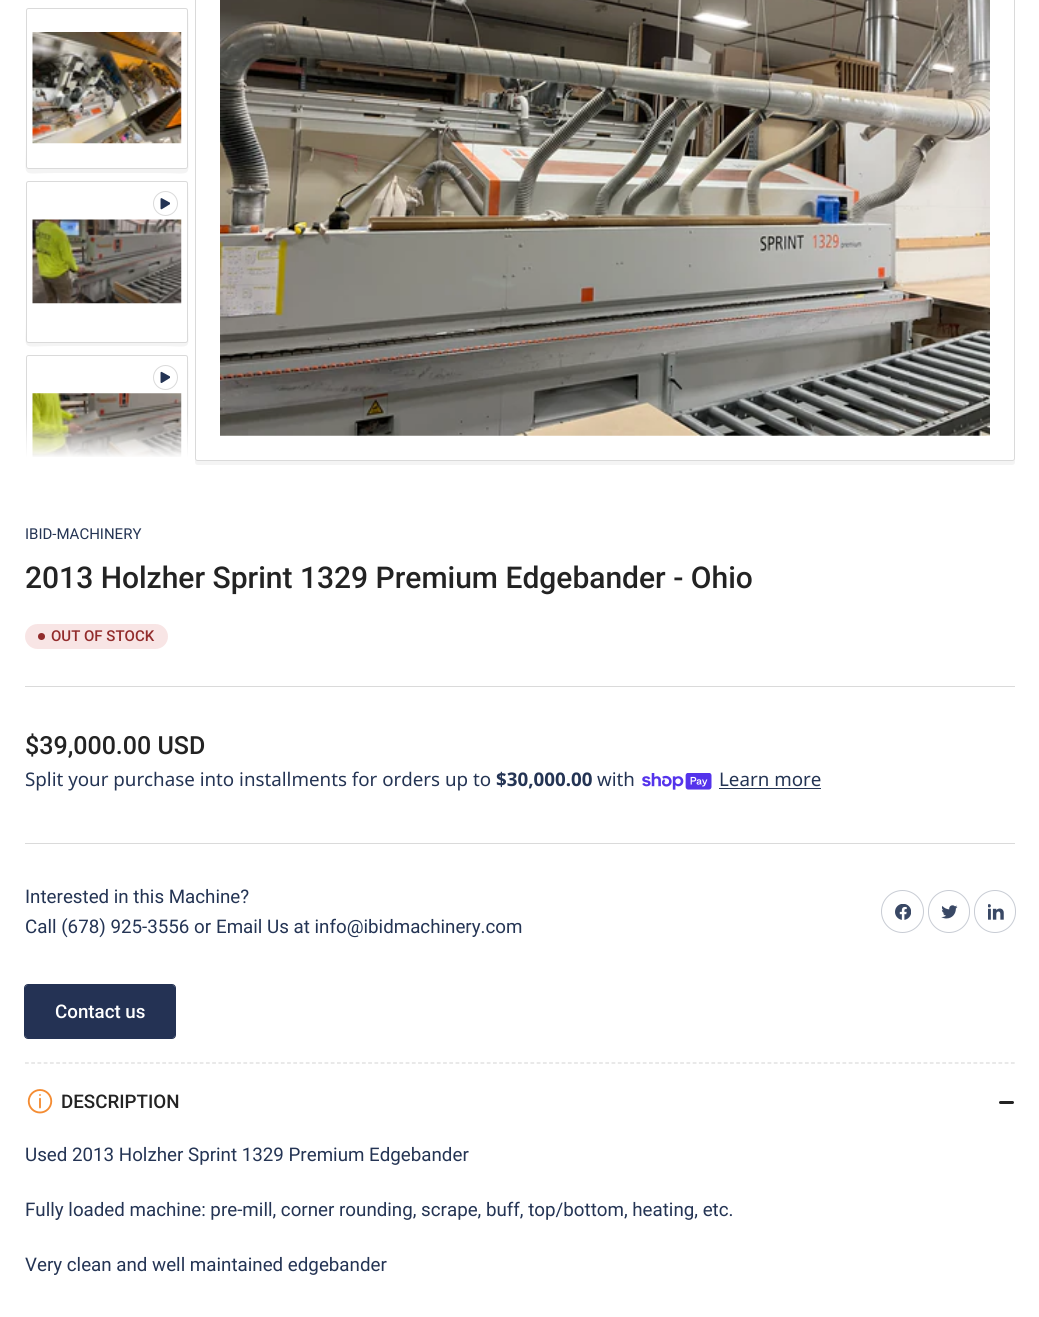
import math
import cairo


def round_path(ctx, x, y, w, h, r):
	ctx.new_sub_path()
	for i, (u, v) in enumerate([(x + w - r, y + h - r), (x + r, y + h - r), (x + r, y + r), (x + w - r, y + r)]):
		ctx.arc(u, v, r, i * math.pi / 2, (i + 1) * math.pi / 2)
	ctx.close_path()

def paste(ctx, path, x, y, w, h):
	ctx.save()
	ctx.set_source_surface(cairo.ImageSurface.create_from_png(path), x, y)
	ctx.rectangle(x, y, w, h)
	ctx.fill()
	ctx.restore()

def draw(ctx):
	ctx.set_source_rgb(1, 1, 1)
	ctx.paint()
	ctx.set_source_rgb(0.957, 0.957, 0.957)
	ctx.new_path()
	ctx.move_to(26, 12)
	ctx.line_to(26, 144)
	ctx.curve_to(26, 180, 19, 173, 55, 173)
	ctx.line_to(159, 173)
	ctx.curve_to(195, 173, 188, 180, 188, 144)
	ctx.line_to(188, 92)
	ctx.curve_to(188, 84, 189, 14, 188, 12)
	ctx.line_to(188, 166)
	ctx.curve_to(188, 168, 186, 169, 185, 169)
	ctx.line_to(29, 169)
	ctx.curve_to(27, 169, 26, 168, 26, 166)
	ctx.close_path()
	ctx.fill()
	ctx.set_source_rgb(1, 1, 1)
	round_path(ctx, 26.5, 8.5, 161, 160, 2)
	ctx.fill_preserve()
	ctx.set_source_rgb(0.855, 0.855, 0.855)
	ctx.set_line_width(1)
	ctx.stroke()
	paste(ctx, 'media/1.png', 32, 32, 150, 112)
	ctx.set_source_rgb(0.957, 0.957, 0.957)
	ctx.new_path()
	ctx.move_to(26, 186)
	ctx.line_to(26, 318)
	ctx.curve_to(26, 353, 19, 346, 55, 346)
	ctx.line_to(159, 346)
	ctx.curve_to(195, 346, 188, 353, 188, 318)
	ctx.line_to(188, 266)
	ctx.curve_to(188, 258, 189, 188, 188, 186)
	ctx.line_to(188, 340)
	ctx.curve_to(188, 341, 186, 342, 185, 342)
	ctx.line_to(29, 342)
	ctx.curve_to(27, 342, 26, 341, 26, 340)
	ctx.close_path()
	ctx.fill()
	ctx.set_source_rgb(1, 1, 1)
	round_path(ctx, 26.5, 181.5, 161, 161, 2)
	ctx.fill_preserve()
	ctx.set_source_rgb(0.855, 0.855, 0.855)
	ctx.stroke()
	ctx.arc(165.5, 203.5, 12, 0, 2 * math.pi)
	ctx.stroke()
	paste(ctx, 'media/2.png', 160, 198, 10, 12)
	paste(ctx, 'media/3.png', 32, 219, 150, 85)
	ctx.save()
	ctx.rectangle(25, 0, 164, 458)
	ctx.clip()
	ctx.set_source_rgb(0.957, 0.957, 0.957)
	ctx.new_path()
	ctx.move_to(26, 360)
	ctx.line_to(26, 492)
	ctx.curve_to(26, 527, 19, 520, 55, 520)
	ctx.line_to(159, 520)
	ctx.curve_to(195, 520, 188, 527, 188, 492)
	ctx.line_to(188, 440)
	ctx.curve_to(188, 432, 189, 362, 188, 360)
	ctx.line_to(188, 514)
	ctx.curve_to(188, 515, 186, 516, 185, 516)
	ctx.line_to(29, 516)
	ctx.curve_to(27, 516, 26, 515, 26, 514)
	ctx.close_path()
	ctx.fill()
	round_path(ctx, 26.5, 355.5, 161, 160, 2)
	ctx.set_source_rgb(0.855, 0.855, 0.855)
	ctx.stroke()
	ctx.restore()
	ctx.arc(165.5, 377.5, 12, 0, 2 * math.pi)
	ctx.stroke()
	paste(ctx, 'media/4.png', 160, 371, 10, 12)
	paste(ctx, 'media/5.png', 32, 393, 150, 64)
	gradient = cairo.LinearGradient(107, 458, 107, 414)
	gradient.add_color_stop_rgba(0, 1, 1, 1, 1)
	gradient.add_color_stop_rgba(1, 1, 1, 1, 0)
	ctx.set_source(gradient)
	ctx.rectangle(26, 415, 162, 43)
	ctx.fill()
	ctx.set_source_rgb(0.957, 0.957, 0.957)
	ctx.new_path()
	ctx.move_to(195, 459)
	ctx.line_to(195, 462)
	ctx.curve_to(195, 464, 196, 465, 198, 465)
	ctx.line_to(1012, 465)
	ctx.curve_to(1014, 465, 1015, 464, 1015, 462)
	ctx.line_to(1015, 459)
	ctx.curve_to(1015, 460, 1014, 461, 1012, 461)
	ctx.line_to(198, 461)
	ctx.curve_to(196, 461, 195, 460, 195, 459)
	ctx.close_path()
	ctx.fill()
	round_path(ctx, 195.5, -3.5, 819, 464, 2)
	ctx.set_source_rgb(0.855, 0.855, 0.855)
	ctx.stroke()
	paste(ctx, 'media/6.png', 220, 0, 770, 436)
	ctx.rectangle(25, 686, 990, 1)
	ctx.fill()
	ctx.select_font_face('Roboto')
	ctx.set_font_size(15)
	ctx.set_source_rgb(0.141, 0.204, 0.329)
	ctx.move_to(25, 539)
	ctx.show_text('IBID-MACHINERY')
	ctx.select_font_face('Roboto Medium')
	ctx.set_font_size(30)
	ctx.set_source_rgb(0.137, 0.137, 0.137)
	ctx.move_to(25, 588)
	ctx.show_text('2013 Holzher Sprint 1329 Premium Edgebander - Ohio')
	ctx.set_source_rgb(0.969, 0.898, 0.898)
	round_path(ctx, 25, 624, 143, 25, 12.5)
	ctx.fill()
	ctx.set_source_rgb(0.573, 0.173, 0.173)
	ctx.arc(41.5, 636.5, 3.5, 0, 2 * math.pi)
	ctx.fill()
	ctx.set_font_size(15)
	ctx.move_to(51, 641)
	ctx.show_text('OUT OF STOCK')
	ctx.set_font_size(25)
	ctx.set_source_rgb(0.137, 0.137, 0.137)
	ctx.move_to(25, 754)
	ctx.show_text('$39,000.00 USD')
	ctx.select_font_face('Noto Sans')
	ctx.set_font_size(18.75)
	ctx.set_source_rgb(0.141, 0.204, 0.329)
	ctx.move_to(25, 786)
	ctx.show_text('Split your purchase into installments for orders up to')
	ctx.select_font_face('Noto Sans', cairo.FONT_SLANT_NORMAL, cairo.FONT_WEIGHT_BOLD)
	ctx.move_to(496, 786)
	ctx.show_text('$30,000.00')
	ctx.select_font_face('Noto Sans')
	ctx.move_to(597, 786)
	ctx.show_text('with')
	paste(ctx, 'media/7.png', 642, 773, 70, 17)
	ctx.move_to(719, 786)
	ctx.show_text('Learn more')
	ctx.rectangle(719, 788, 102, 1)
	ctx.fill()
	ctx.set_source_rgb(0.855, 0.855, 0.855)
	ctx.rectangle(25, 843, 990, 1)
	ctx.fill()
	ctx.select_font_face('Roboto')
	ctx.set_source_rgb(0.141, 0.204, 0.329)
	for x, y, s in [
		(25, 903, 'Interested in this Machine?'),
		(25, 933, 'Call (678) 925-3556 or'),
		(216, 933, 'Email Us at info@ibidmachinery.com'),
	]:
		ctx.move_to(x, y)
		ctx.show_text(s)
	ctx.new_path()
	ctx.arc(902.5, 911.5, 21, 0, 2 * math.pi)
	ctx.set_source_rgb(0.784, 0.8, 0.831)
	ctx.stroke()
	paste(ctx, 'media/8.png', 895, 904, 16, 16)
	round_path(ctx, 928.5, 890.5, 41, 42, 20.5)
	ctx.stroke()
	paste(ctx, 'media/9.png', 941, 905, 17, 14)
	round_path(ctx, 974.5, 890.5, 41, 42, 20.5)
	ctx.stroke()
	paste(ctx, 'media/10.png', 988, 904, 16, 16)
	round_path(ctx, 24.5, 984.5, 151, 54, 3.5)
	ctx.set_source_rgb(0.141, 0.196, 0.329)
	ctx.stroke()
	round_path(ctx, 25, 985, 150, 53, 2.5)
	ctx.fill()
	ctx.select_font_face('Roboto Medium')
	ctx.set_source_rgb(1, 1, 1)
	ctx.move_to(55, 1018)
	ctx.show_text('Contact us')
	ctx.new_path()
	ctx.move_to(25, 1063)
	ctx.line_to(1015, 1063)
	ctx.set_source_rgb(0.855, 0.855, 0.855)
	ctx.set_line_width(1.2)
	ctx.set_dash([3.75, 2.49])
	ctx.stroke()
	paste(ctx, 'media/11.png', 27, 1089, 26, 25)
	ctx.set_source_rgb(0.137, 0.137, 0.137)
	ctx.move_to(61, 1108)
	ctx.show_text('DESCRIPTION')
	round_path(ctx, 999, 1101, 9, 3, 1.5)
	ctx.fill()
	round_path(ctx, 1004, 1101, 10, 3, 1.5)
	ctx.fill()
	ctx.select_font_face('Roboto')
	ctx.set_source_rgb(0.141, 0.204, 0.329)
	for x, y, s in [
		(25, 1161, 'Used 2013 Holzher Sprint 1329 Premium Edgebander'),
		(25, 1216, 'Fully loaded machine: pre-mill, corner rounding, scrape, buff, top/bottom, heating, etc.'),
		(25, 1271, 'Very clean and well maintained edgebander'),
	]:
		ctx.move_to(x, y)
		ctx.show_text(s)


surface = cairo.ImageSurface(cairo.FORMAT_RGB24, 1039, 1317)
ctx = cairo.Context(surface)
options = cairo.FontOptions()
options.set_hint_metrics(cairo.HINT_METRICS_OFF)
options.set_hint_style(cairo.HINT_STYLE_NONE)
ctx.set_font_options(options)
ctx.set_miter_limit(4)
draw(ctx)
surface.write_to_png('image.png')
